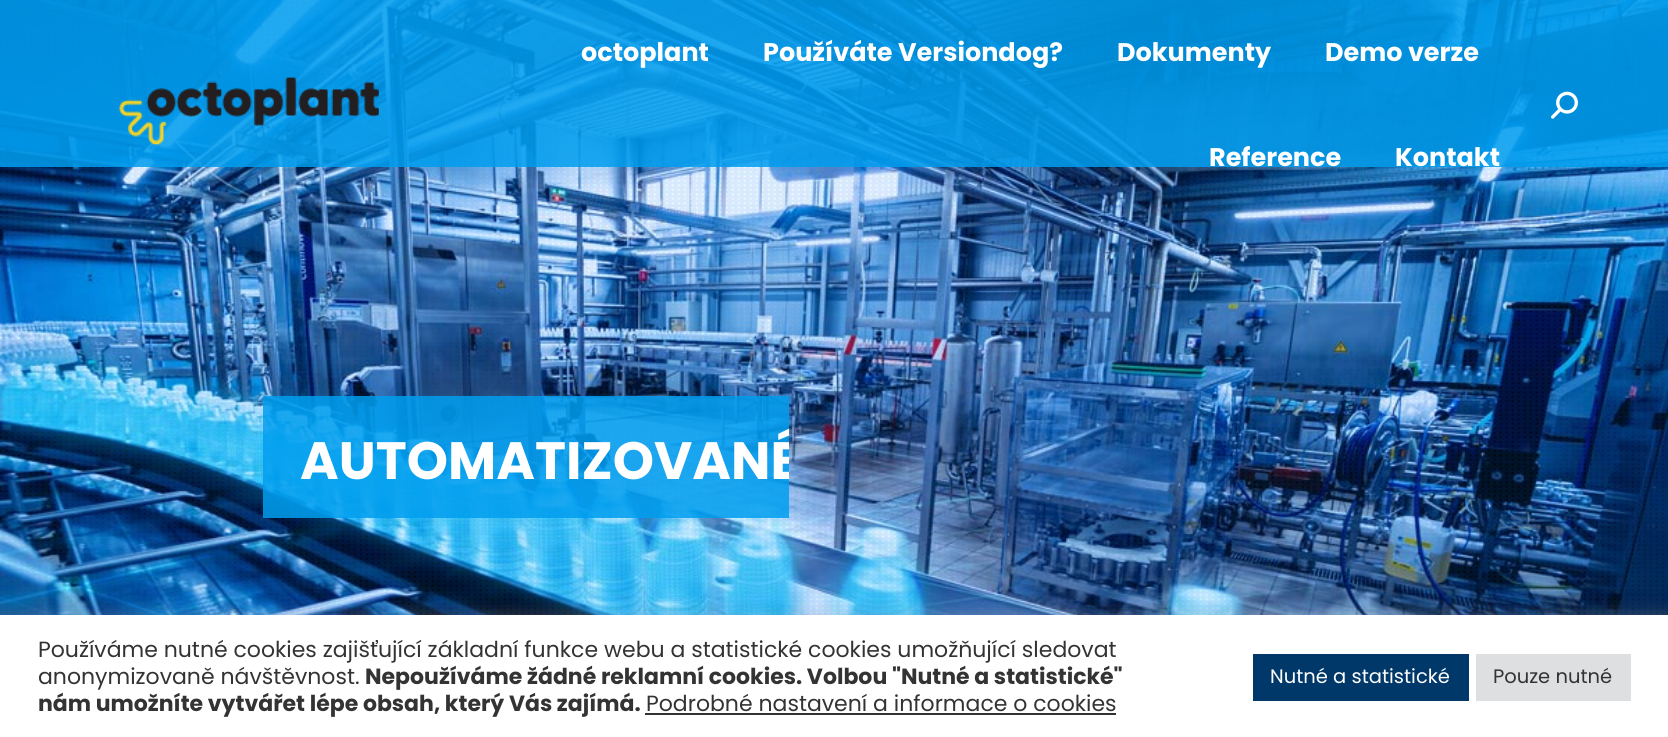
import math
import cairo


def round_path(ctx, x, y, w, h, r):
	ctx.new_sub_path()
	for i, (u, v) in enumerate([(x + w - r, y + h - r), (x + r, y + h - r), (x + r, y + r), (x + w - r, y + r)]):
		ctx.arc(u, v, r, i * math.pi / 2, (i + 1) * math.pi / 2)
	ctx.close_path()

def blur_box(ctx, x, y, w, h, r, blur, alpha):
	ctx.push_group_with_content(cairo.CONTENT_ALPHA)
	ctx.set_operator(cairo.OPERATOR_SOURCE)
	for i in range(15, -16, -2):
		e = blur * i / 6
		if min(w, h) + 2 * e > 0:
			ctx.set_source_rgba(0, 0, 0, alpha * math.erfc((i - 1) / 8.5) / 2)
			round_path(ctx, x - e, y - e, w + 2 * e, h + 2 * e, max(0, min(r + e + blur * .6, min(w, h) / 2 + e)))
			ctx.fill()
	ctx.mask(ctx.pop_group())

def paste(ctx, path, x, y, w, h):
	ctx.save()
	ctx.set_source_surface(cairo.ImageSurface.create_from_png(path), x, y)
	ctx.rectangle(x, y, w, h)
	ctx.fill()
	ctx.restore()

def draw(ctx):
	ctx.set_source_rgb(1, 1, 1)
	ctx.paint()
	paste(ctx, 'media/3.png', 0, 0, 1668, 615)
	paste(ctx, 'media/4.png', 0, 0, 1668, 615)
	ctx.set_source_rgba(0, 0.62, 0.933, 0.85)
	ctx.rectangle(0, 0, 1668, 167)
	ctx.fill()
	paste(ctx, 'media/1.png', 118, 77, 261, 69)
	ctx.select_font_face('Poppins', cairo.FONT_SLANT_NORMAL, cairo.FONT_WEIGHT_BOLD)
	ctx.set_font_size(25.5)
	ctx.set_source_rgb(1, 1, 1)
	for x, y, s in [
		(581, 61, 'octoplant'),
		(763, 61, 'Používáte Versiondog?'),
		(1117, 61, 'Dokumenty'),
		(1325, 61, 'Demo verze'),
		(1209, 166, 'Reference'),
		(1395, 166, 'Kontakt'),
	]:
		ctx.move_to(x, y)
		ctx.show_text(s)
	paste(ctx, 'media/2.png', 1551, 91, 27, 28)
	ctx.set_source_rgba(0, 0.62, 0.933, 0.85)
	ctx.rectangle(263, 396, 526, 122)
	ctx.fill()
	ctx.save()
	ctx.rectangle(0, 396, 789, 122)
	ctx.clip()
	ctx.set_font_size(52.5)
	ctx.set_source_rgb(1, 1, 1)
	ctx.move_to(300, 479)
	ctx.show_text('AUTOMATIZOVANÉ')
	ctx.restore()
	ctx.set_source_rgb(0.675, 0.671, 0.671)
	blur_box(ctx, 0, 614, 1668, 123, 0, 7.5, 0.3)
	ctx.set_source_rgb(1, 1, 1)
	ctx.rectangle(0, 615, 1668, 122)
	ctx.fill()
	ctx.select_font_face('Poppins')
	ctx.set_font_size(22)
	ctx.set_source_rgb(0.2, 0.2, 0.2)
	ctx.move_to(38, 657)
	ctx.show_text('Používáme nutné cookies zajišťující základní funkce webu a statistické cookies umožňující sledovat')
	ctx.move_to(38, 684)
	ctx.show_text('anonymizovaně návštěvnost.')
	ctx.select_font_face('Poppins', cairo.FONT_SLANT_NORMAL, cairo.FONT_WEIGHT_BOLD)
	ctx.move_to(365, 684)
	ctx.show_text('Nepoužíváme žádné reklamní cookies. Volbou "Nutné a statistické"')
	ctx.move_to(38, 711)
	ctx.show_text('nám umožníte vytvářet lépe obsah, který Vás zajímá.')
	ctx.select_font_face('Poppins')
	ctx.move_to(646, 711)
	ctx.show_text('Podrobné nastavení a informace o cookies')
	ctx.rectangle(645, 713, 471, 2)
	ctx.fill()
	ctx.set_source_rgb(0, 0.22, 0.412)
	ctx.rectangle(1253, 654, 216, 47)
	ctx.fill()
	ctx.set_font_size(19.5)
	ctx.set_source_rgb(1, 1, 1)
	ctx.move_to(1270, 683)
	ctx.show_text('Nutné a statistické')
	ctx.set_source_rgb(0.871, 0.875, 0.878)
	ctx.rectangle(1476, 654, 155, 47)
	ctx.fill()
	ctx.set_source_rgb(0.2, 0.2, 0.2)
	ctx.move_to(1493, 683)
	ctx.show_text('Pouze nutné')


surface = cairo.ImageSurface(cairo.FORMAT_RGB24, 1668, 737)
ctx = cairo.Context(surface)
options = cairo.FontOptions()
options.set_hint_metrics(cairo.HINT_METRICS_OFF)
options.set_hint_style(cairo.HINT_STYLE_NONE)
ctx.set_font_options(options)
ctx.set_miter_limit(4)
draw(ctx)
surface.write_to_png('image.png')
